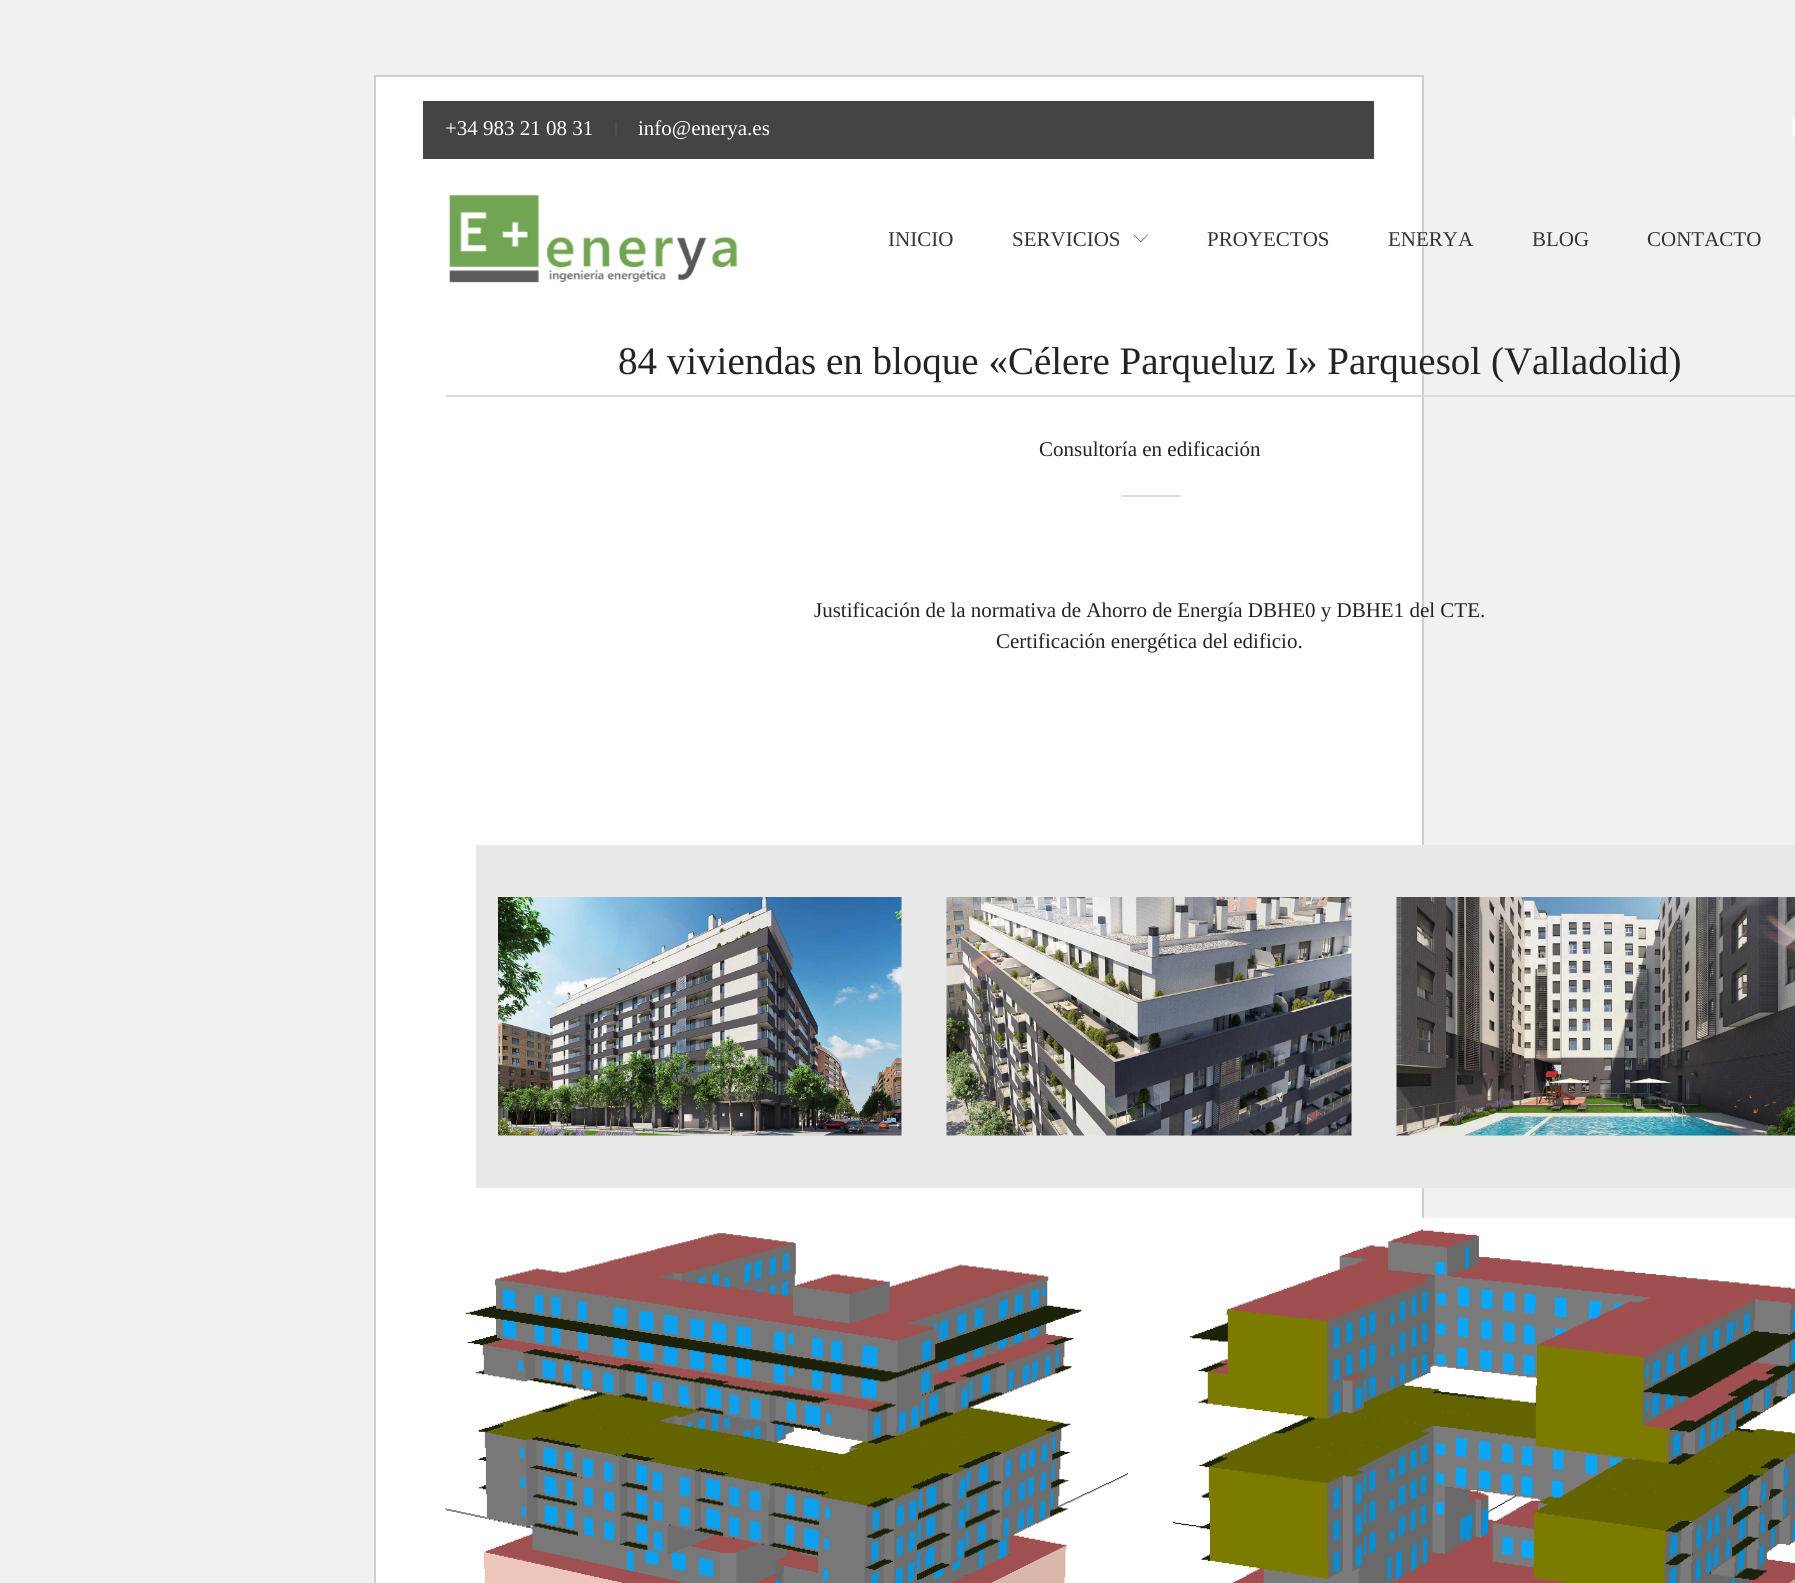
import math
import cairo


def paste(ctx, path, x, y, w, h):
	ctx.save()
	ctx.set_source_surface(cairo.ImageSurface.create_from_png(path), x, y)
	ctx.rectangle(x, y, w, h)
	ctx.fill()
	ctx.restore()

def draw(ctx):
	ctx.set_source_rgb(0.945, 0.945, 0.945)
	ctx.paint()
	ctx.set_source_rgb(1, 1, 1)
	ctx.rectangle(375, 76, 1048, 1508)
	ctx.fill_preserve()
	ctx.set_source_rgb(0.8, 0.816, 0.831)
	ctx.stroke()
	ctx.set_source_rgb(0.267, 0.267, 0.267)
	ctx.rectangle(423, 101, 951, 58)
	ctx.fill()
	ctx.select_font_face('Liberation Serif')
	ctx.set_font_size(21)
	ctx.set_source_rgb(1, 1, 1)
	ctx.move_to(445, 135)
	ctx.show_text('+34 983 21 08 31')
	ctx.set_source_rgb(0.31, 0.31, 0.31)
	ctx.rectangle(615, 122, 2, 15)
	ctx.fill()
	ctx.set_source_rgb(1, 1, 1)
	ctx.move_to(638, 135)
	ctx.show_text('info@enerya.es')
	paste(ctx, 'media/1.png', 1792, 118, 3, 19)
	paste(ctx, 'media/2.png', 449, 195, 289, 88)
	ctx.set_source_rgb(0.2, 0.2, 0.2)
	ctx.move_to(888, 246)
	ctx.show_text('INICIO')
	ctx.move_to(1012, 246)
	ctx.show_text('SERVICIOS')
	paste(ctx, 'media/3.png', 1133, 234, 15, 9)
	for x, y, s in [
		(1207, 246, 'PROYECTOS'),
		(1388, 246, 'ENERYA'),
		(1532, 246, 'BLOG'),
		(1647, 246, 'CONTACTO'),
	]:
		ctx.move_to(x, y)
		ctx.show_text(s)
	ctx.set_source_rgb(0.855, 0.855, 0.855)
	ctx.rectangle(446, 395, 1349, 2)
	ctx.fill()
	ctx.set_font_size(39)
	ctx.set_source_rgb(0.141, 0.137, 0.129)
	ctx.move_to(618, 374)
	ctx.show_text('84 viviendas en bloque «Célere Parqueluz I» Parquesol (Valladolid)')
	ctx.set_font_size(21)
	ctx.move_to(1039, 456)
	ctx.show_text('Consultoría en edificación')
	ctx.set_source_rgb(0.867, 0.867, 0.867)
	ctx.rectangle(1121, 495, 60, 2)
	ctx.fill()
	ctx.set_source_rgb(0.141, 0.137, 0.129)
	ctx.move_to(814, 617)
	ctx.show_text('Justificación de la normativa de Ahorro de Energía DBHE0 y DBHE1 del CTE.')
	ctx.move_to(996, 648)
	ctx.show_text('Certificación energética del edificio.')
	ctx.set_source_rgb(0.91, 0.91, 0.91)
	ctx.rectangle(476, 845, 1319, 343)
	ctx.fill()
	paste(ctx, 'media/4.png', 498, 897, 404, 239)
	paste(ctx, 'media/5.png', 946, 897, 406, 239)
	paste(ctx, 'media/6.png', 1396, 897, 399, 239)
	paste(ctx, 'media/7.png', 445, 1233, 683, 350)
	paste(ctx, 'media/8.png', 1173, 1218, 622, 365)


surface = cairo.ImageSurface(cairo.FORMAT_RGB24, 1795, 1583)
ctx = cairo.Context(surface)
options = cairo.FontOptions()
options.set_hint_metrics(cairo.HINT_METRICS_OFF)
options.set_hint_style(cairo.HINT_STYLE_NONE)
ctx.set_font_options(options)
ctx.set_miter_limit(4)
draw(ctx)
surface.write_to_png('image.png')
